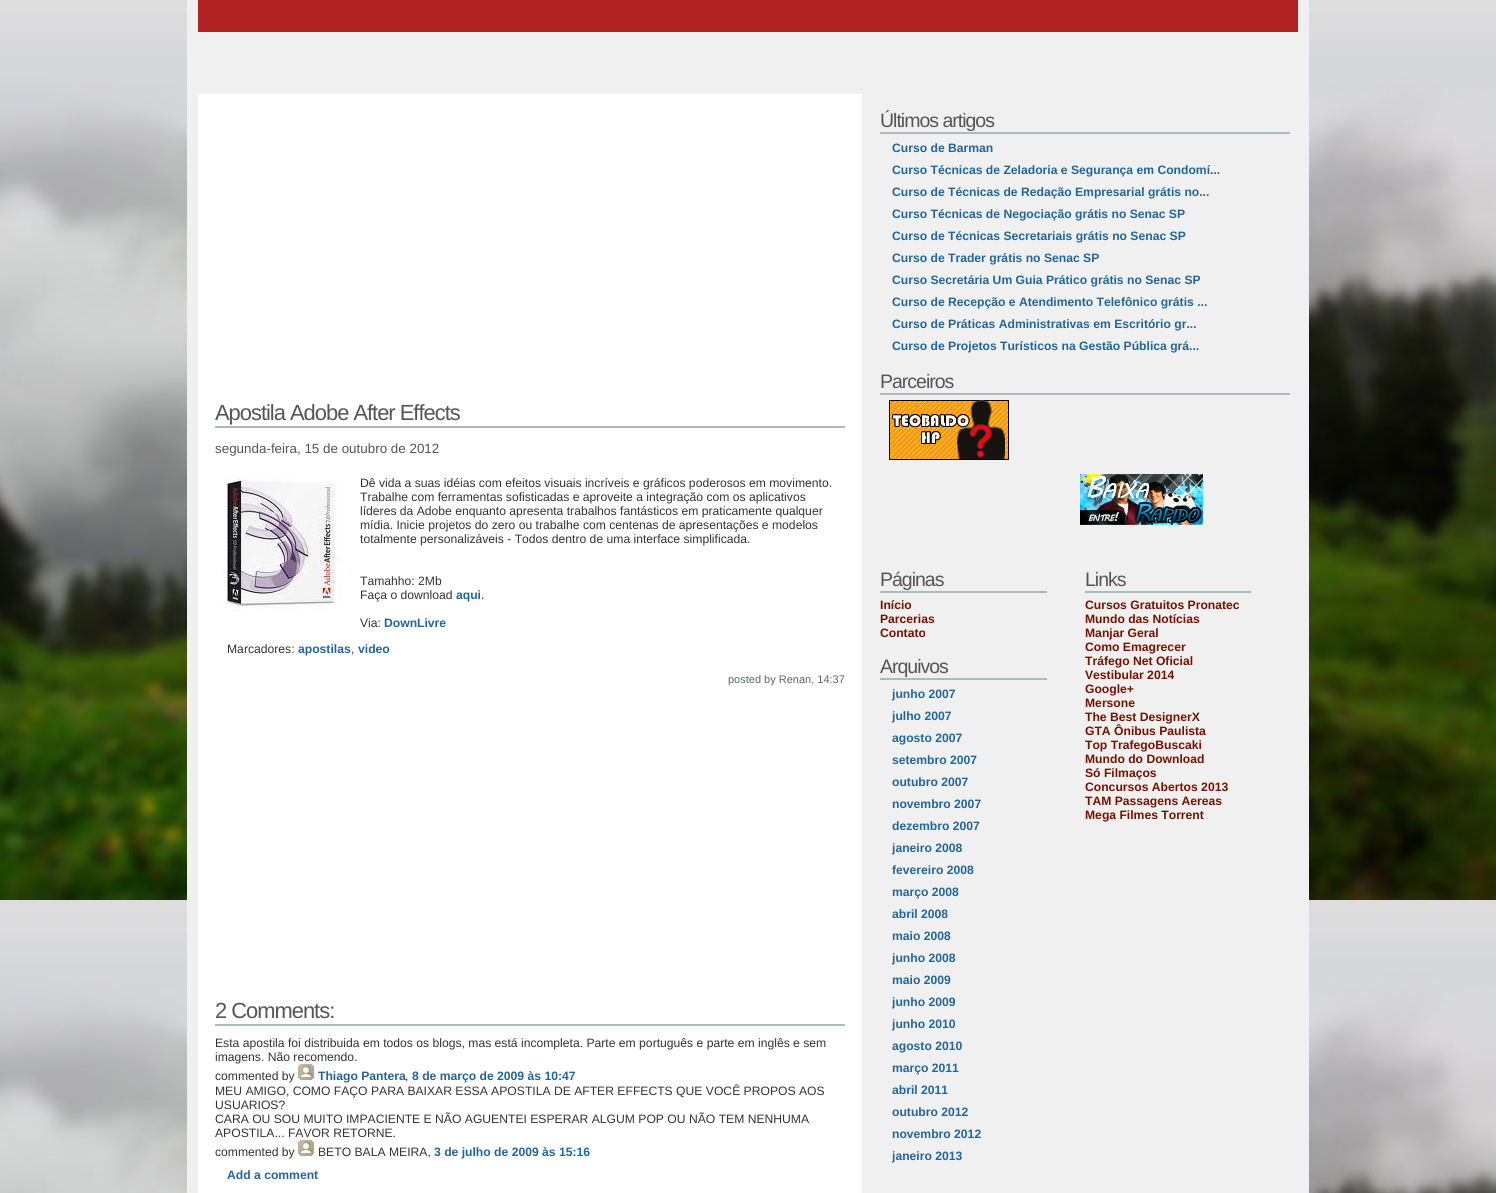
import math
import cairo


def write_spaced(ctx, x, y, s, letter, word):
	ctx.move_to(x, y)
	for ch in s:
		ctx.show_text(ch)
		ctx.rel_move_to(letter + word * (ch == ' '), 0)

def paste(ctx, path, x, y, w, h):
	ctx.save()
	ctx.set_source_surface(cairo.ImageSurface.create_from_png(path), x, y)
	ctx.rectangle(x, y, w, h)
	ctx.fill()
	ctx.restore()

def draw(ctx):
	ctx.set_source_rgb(1, 1, 1)
	ctx.paint()
	paste(ctx, 'media/1.png', 0, 0, 1496, 1193)
	ctx.set_source_rgb(0.941, 0.941, 0.941)
	ctx.rectangle(188, 0, 1120, 1193)
	ctx.fill()
	ctx.set_source_rgb(0.933, 0.933, 1)
	ctx.rectangle(1308, 0, 1, 1193)
	ctx.rectangle(187, 0, 1, 1193)
	ctx.fill()
	ctx.set_source_rgb(0.698, 0.133, 0.133)
	ctx.rectangle(198, 0, 1100, 32)
	ctx.fill()
	ctx.set_source_rgb(1, 1, 1)
	ctx.rectangle(198, 94, 664, 1099)
	ctx.fill()
	ctx.set_source_rgb(0.667, 0.733, 0.733)
	ctx.rectangle(215, 426, 630, 2)
	ctx.fill()
	ctx.select_font_face('Liberation Sans')
	ctx.set_font_size(21.9)
	ctx.set_source_rgb(0.333, 0.333, 0.333)
	write_spaced(ctx, 215, 420, 'Apostila Adobe After Effects', -1, 0)
	ctx.set_font_size(13.4)
	ctx.move_to(215, 453)
	ctx.show_text('segunda-feira, 15 de outubro de 2012')
	paste(ctx, 'media/2.png', 223, 476, 120, 135)
	ctx.set_font_size(12.15)
	ctx.set_source_rgb(0.2, 0.2, 0.2)
	for x, y, s in [
		(360, 487, 'Dê vida a suas idéias com efeitos visuais incríveis e gráficos poderosos em movimento.'),
		(360, 501, 'Trabalhe com ferramentas sofisticadas e aproveite a integração com os aplicativos'),
		(360, 515, 'líderes da Adobe enquanto apresenta trabalhos fantásticos em praticamente qualquer'),
		(360, 529, 'mídia. Inicie projetos do zero ou trabalhe com centenas de apresentações e modelos'),
		(360, 543, 'totalmente personalizáveis - Todos dentro de uma interface simplificada.'),
		(360, 585, 'Tamahho: 2Mb'),
		(360, 599, 'Faça o download'),
	]:
		ctx.move_to(x, y)
		ctx.show_text(s)
	ctx.select_font_face('Liberation Sans', cairo.FONT_SLANT_NORMAL, cairo.FONT_WEIGHT_BOLD)
	ctx.set_source_rgb(0.133, 0.4, 0.6)
	ctx.move_to(456, 599)
	ctx.show_text('aqui')
	ctx.select_font_face('Liberation Sans')
	ctx.set_source_rgb(0.2, 0.2, 0.2)
	ctx.move_to(481, 599)
	ctx.show_text('.')
	ctx.move_to(360, 627)
	ctx.show_text('Via:')
	ctx.select_font_face('Liberation Sans', cairo.FONT_SLANT_NORMAL, cairo.FONT_WEIGHT_BOLD)
	ctx.set_source_rgb(0.133, 0.4, 0.6)
	ctx.move_to(384, 627)
	ctx.show_text('DownLivre')
	ctx.select_font_face('Liberation Sans')
	ctx.set_source_rgb(0.2, 0.2, 0.2)
	ctx.move_to(227, 653)
	ctx.show_text('Marcadores:')
	ctx.select_font_face('Liberation Sans', cairo.FONT_SLANT_NORMAL, cairo.FONT_WEIGHT_BOLD)
	ctx.set_source_rgb(0.133, 0.4, 0.6)
	ctx.move_to(298, 653)
	ctx.show_text('apostilas')
	ctx.select_font_face('Liberation Sans')
	ctx.set_source_rgb(0.2, 0.2, 0.2)
	ctx.move_to(351, 653)
	ctx.show_text(',')
	ctx.select_font_face('Liberation Sans', cairo.FONT_SLANT_NORMAL, cairo.FONT_WEIGHT_BOLD)
	ctx.set_source_rgb(0.133, 0.4, 0.6)
	ctx.move_to(358, 653)
	ctx.show_text('video')
	ctx.select_font_face('Liberation Sans')
	ctx.set_font_size(11)
	ctx.set_source_rgb(0.333, 0.4, 0.467)
	ctx.move_to(728, 683)
	ctx.show_text('posted by Renan, 14:37')
	ctx.set_source_rgb(0.667, 0.733, 0.733)
	ctx.rectangle(215, 1024, 630, 2)
	ctx.fill()
	ctx.set_font_size(21.9)
	ctx.set_source_rgb(0.333, 0.333, 0.333)
	write_spaced(ctx, 215, 1018, '2 Comments:', -1, 0)
	ctx.set_font_size(12.15)
	ctx.set_source_rgb(0.2, 0.2, 0.2)
	for x, y, s in [
		(215, 1047, 'Esta apostila foi distribuida em todos os blogs, mas está incompleta. Parte em português e parte em inglês e sem'),
		(215, 1061, 'imagens. Não recomendo.'),
		(215, 1080, 'commented by'),
	]:
		ctx.move_to(x, y)
		ctx.show_text(s)
	paste(ctx, 'media/3.png', 298, 1064, 16, 16)
	ctx.select_font_face('Liberation Sans', cairo.FONT_SLANT_NORMAL, cairo.FONT_WEIGHT_BOLD)
	ctx.set_source_rgb(0.133, 0.4, 0.6)
	ctx.move_to(318, 1080)
	ctx.show_text('Thiago Pantera')
	ctx.select_font_face('Liberation Sans')
	ctx.set_source_rgb(0.2, 0.2, 0.2)
	ctx.move_to(405, 1080)
	ctx.show_text(',')
	ctx.select_font_face('Liberation Sans', cairo.FONT_SLANT_NORMAL, cairo.FONT_WEIGHT_BOLD)
	ctx.set_source_rgb(0.133, 0.4, 0.6)
	ctx.move_to(412, 1080)
	ctx.show_text('8 de março de 2009 às 10:47')
	ctx.select_font_face('Liberation Sans')
	ctx.set_source_rgb(0.2, 0.2, 0.2)
	for x, y, s in [
		(215, 1095, 'MEU AMIGO, COMO FAÇO PARA BAIXAR ESSA APOSTILA DE AFTER EFFECTS QUE VOCÊ PROPOS AOS'),
		(215, 1109, 'USUARIOS?'),
		(215, 1123, 'CARA OU SOU MUITO IMPACIENTE E NÃO AGUENTEI ESPERAR ALGUM POP OU NÃO TEM NENHUMA'),
		(215, 1137, 'APOSTILA... FAVOR RETORNE.'),
		(215, 1156, 'commented by'),
	]:
		ctx.move_to(x, y)
		ctx.show_text(s)
	paste(ctx, 'media/3.png', 298, 1140, 16, 16)
	ctx.move_to(318, 1156)
	ctx.show_text('BETO BALA MEIRA,')
	ctx.select_font_face('Liberation Sans', cairo.FONT_SLANT_NORMAL, cairo.FONT_WEIGHT_BOLD)
	ctx.set_source_rgb(0.133, 0.4, 0.6)
	ctx.move_to(434, 1156)
	ctx.show_text('3 de julho de 2009 às 15:16')
	ctx.move_to(227, 1179)
	ctx.show_text('Add a comment')
	ctx.set_source_rgb(0.667, 0.733, 0.733)
	ctx.rectangle(880, 132, 410, 2)
	ctx.fill()
	ctx.select_font_face('Liberation Sans')
	ctx.set_font_size(19.5)
	ctx.set_source_rgb(0.333, 0.333, 0.333)
	write_spaced(ctx, 880, 127, 'Últimos artigos', -1, 0)
	ctx.select_font_face('Liberation Sans', cairo.FONT_SLANT_NORMAL, cairo.FONT_WEIGHT_BOLD)
	ctx.set_font_size(12.15)
	ctx.set_source_rgb(0.133, 0.4, 0.6)
	for x, y, s in [
		(892, 152, 'Curso de Barman'),
		(892, 174, 'Curso Técnicas de Zeladoria e Segurança em Condomí...'),
		(892, 196, 'Curso de Técnicas de Redação Empresarial grátis no...'),
		(892, 218, 'Curso Técnicas de Negociação grátis no Senac SP'),
		(892, 240, 'Curso de Técnicas Secretariais grátis no Senac SP'),
		(892, 262, 'Curso de Trader grátis no Senac SP'),
		(892, 284, 'Curso Secretária Um Guia Prático grátis no Senac SP'),
		(892, 306, 'Curso de Recepção e Atendimento Telefônico grátis ...'),
		(892, 328, 'Curso de Práticas Administrativas em Escritório gr...'),
		(892, 350, 'Curso de Projetos Turísticos na Gestão Pública grá...'),
	]:
		ctx.move_to(x, y)
		ctx.show_text(s)
	ctx.set_source_rgb(0.667, 0.733, 0.733)
	ctx.rectangle(880, 393, 410, 2)
	ctx.fill()
	ctx.select_font_face('Liberation Sans')
	ctx.set_font_size(19.5)
	ctx.set_source_rgb(0.333, 0.333, 0.333)
	write_spaced(ctx, 880, 388, 'Parceiros', -1, 0)
	paste(ctx, 'media/4.png', 889, 400, 120, 60)
	paste(ctx, 'media/5.png', 1080, 474, 123, 51)
	ctx.set_source_rgb(0.667, 0.733, 0.733)
	ctx.rectangle(880, 591, 167, 2)
	ctx.fill()
	ctx.set_source_rgb(0.333, 0.333, 0.333)
	write_spaced(ctx, 880, 586, 'Páginas', -1, 0)
	ctx.select_font_face('Liberation Sans', cairo.FONT_SLANT_NORMAL, cairo.FONT_WEIGHT_BOLD)
	ctx.set_font_size(12.15)
	ctx.set_source_rgb(0.467, 0.067, 0)
	for x, y, s in [
		(880, 609, 'Início'),
		(880, 623, 'Parcerias'),
		(880, 637, 'Contato'),
	]:
		ctx.move_to(x, y)
		ctx.show_text(s)
	ctx.set_source_rgb(0.667, 0.733, 0.733)
	ctx.rectangle(880, 678, 167, 2)
	ctx.fill()
	ctx.select_font_face('Liberation Sans')
	ctx.set_font_size(19.5)
	ctx.set_source_rgb(0.333, 0.333, 0.333)
	write_spaced(ctx, 880, 673, 'Arquivos', -1, 0)
	ctx.select_font_face('Liberation Sans', cairo.FONT_SLANT_NORMAL, cairo.FONT_WEIGHT_BOLD)
	ctx.set_font_size(12.15)
	ctx.set_source_rgb(0.133, 0.4, 0.6)
	for x, y, s in [
		(892, 698, 'junho 2007'),
		(892, 720, 'julho 2007'),
		(892, 742, 'agosto 2007'),
		(892, 764, 'setembro 2007'),
		(892, 786, 'outubro 2007'),
		(892, 808, 'novembro 2007'),
		(892, 830, 'dezembro 2007'),
		(892, 852, 'janeiro 2008'),
		(892, 874, 'fevereiro 2008'),
		(892, 896, 'março 2008'),
		(892, 918, 'abril 2008'),
		(892, 940, 'maio 2008'),
		(892, 962, 'junho 2008'),
		(892, 984, 'maio 2009'),
		(892, 1006, 'junho 2009'),
		(892, 1028, 'junho 2010'),
		(892, 1050, 'agosto 2010'),
		(892, 1072, 'março 2011'),
		(892, 1094, 'abril 2011'),
		(892, 1116, 'outubro 2012'),
		(892, 1138, 'novembro 2012'),
		(892, 1160, 'janeiro 2013'),
	]:
		ctx.move_to(x, y)
		ctx.show_text(s)
	ctx.set_source_rgb(0.667, 0.733, 0.733)
	ctx.rectangle(1085, 591, 166, 2)
	ctx.fill()
	ctx.select_font_face('Liberation Sans')
	ctx.set_font_size(19.5)
	ctx.set_source_rgb(0.333, 0.333, 0.333)
	write_spaced(ctx, 1085, 586, 'Links', -1, 0)
	ctx.select_font_face('Liberation Sans', cairo.FONT_SLANT_NORMAL, cairo.FONT_WEIGHT_BOLD)
	ctx.set_font_size(12.15)
	ctx.set_source_rgb(0.467, 0.067, 0)
	for x, y, s in [
		(1085, 609, 'Cursos Gratuitos Pronatec'),
		(1085, 623, 'Mundo das Notícias'),
		(1085, 637, 'Manjar Geral'),
		(1085, 651, 'Como Emagrecer'),
		(1085, 665, 'Tráfego Net Oficial'),
		(1085, 679, 'Vestibular 2014'),
		(1085, 693, 'Google+'),
		(1085, 707, 'Mersone'),
		(1085, 721, 'The Best DesignerX'),
		(1085, 735, 'GTA Ônibus Paulista'),
		(1085, 749, 'Top TrafegoBuscaki'),
		(1085, 763, 'Mundo do Download'),
		(1085, 777, 'Só Filmaços'),
		(1085, 791, 'Concursos Abertos 2013'),
		(1085, 805, 'TAM Passagens Aereas'),
		(1085, 819, 'Mega Filmes Torrent'),
	]:
		ctx.move_to(x, y)
		ctx.show_text(s)


surface = cairo.ImageSurface(cairo.FORMAT_RGB24, 1496, 1193)
ctx = cairo.Context(surface)
options = cairo.FontOptions()
options.set_hint_metrics(cairo.HINT_METRICS_OFF)
options.set_hint_style(cairo.HINT_STYLE_NONE)
ctx.set_font_options(options)
ctx.set_miter_limit(4)
draw(ctx)
surface.write_to_png('image.png')
